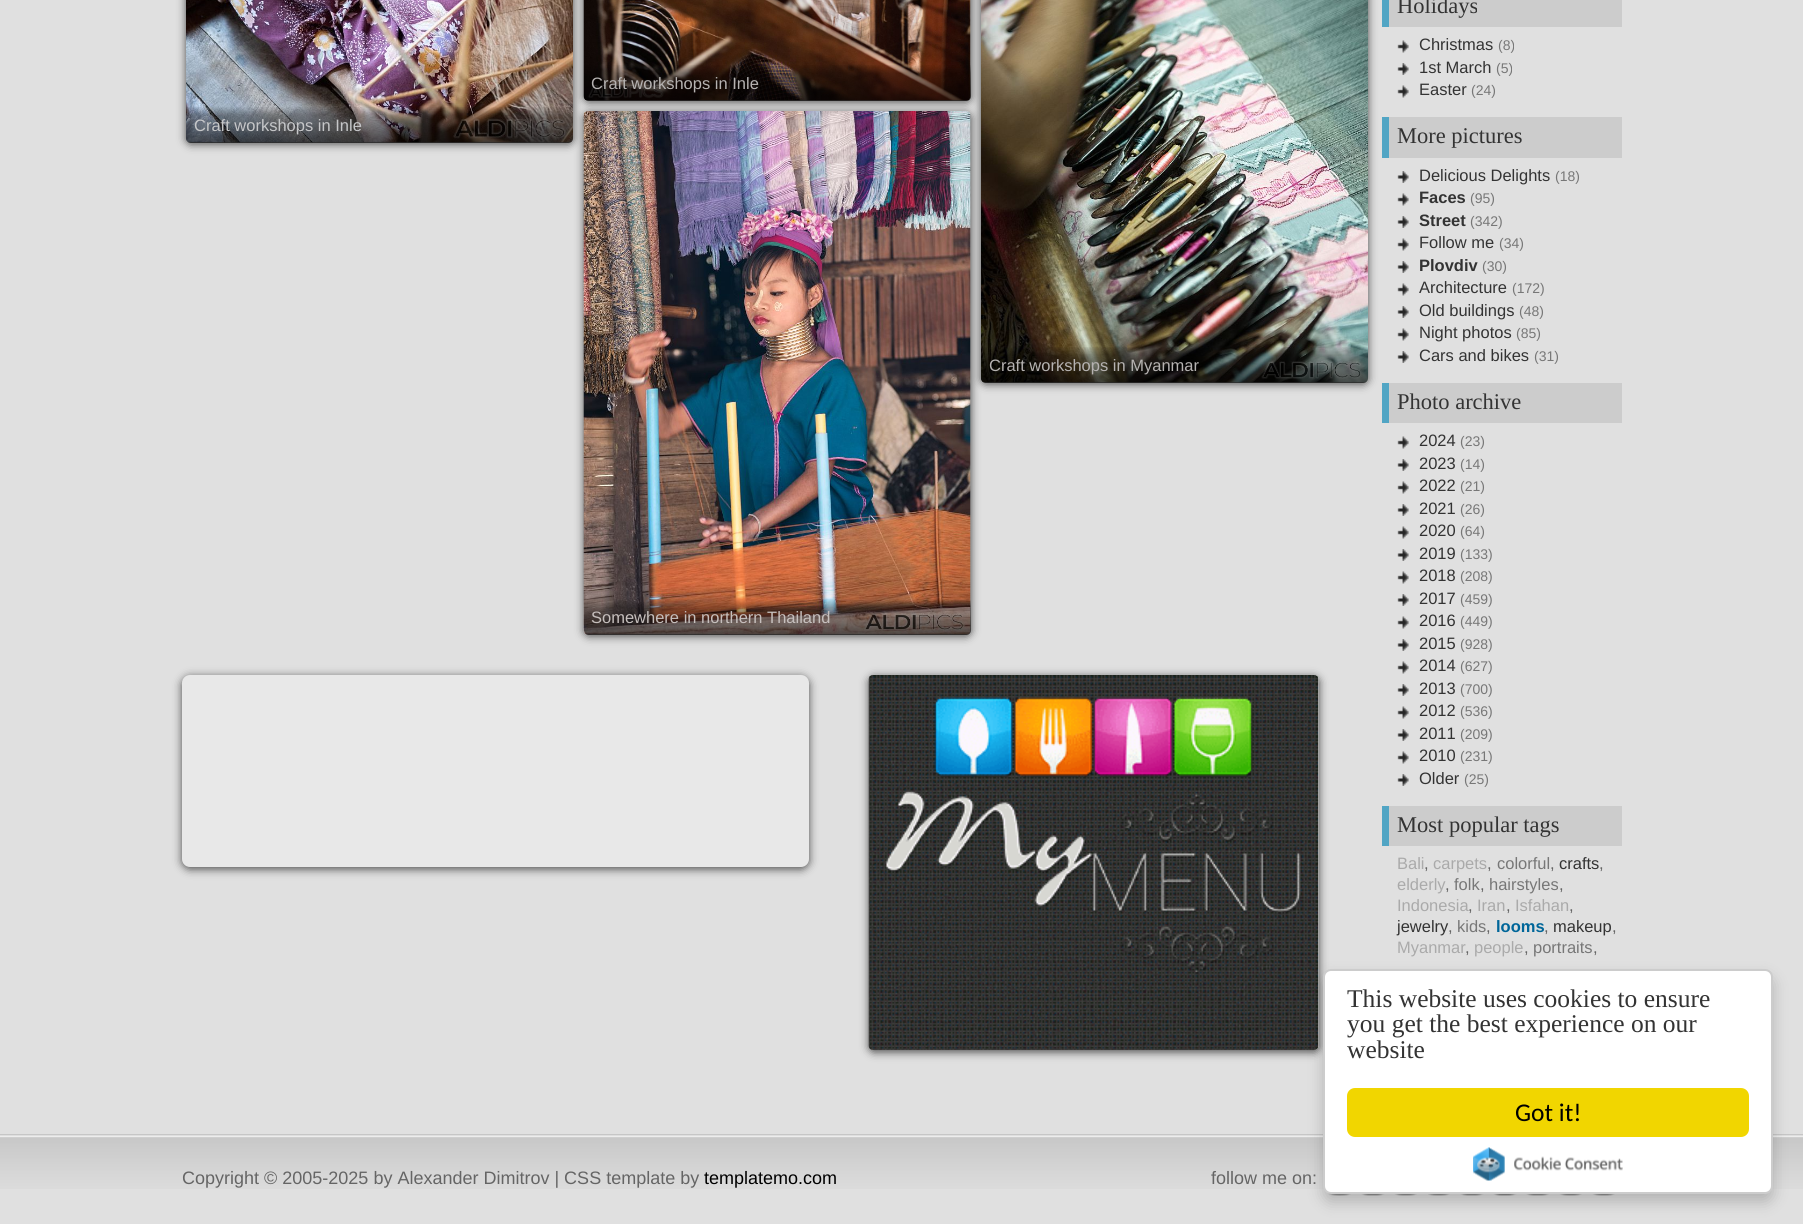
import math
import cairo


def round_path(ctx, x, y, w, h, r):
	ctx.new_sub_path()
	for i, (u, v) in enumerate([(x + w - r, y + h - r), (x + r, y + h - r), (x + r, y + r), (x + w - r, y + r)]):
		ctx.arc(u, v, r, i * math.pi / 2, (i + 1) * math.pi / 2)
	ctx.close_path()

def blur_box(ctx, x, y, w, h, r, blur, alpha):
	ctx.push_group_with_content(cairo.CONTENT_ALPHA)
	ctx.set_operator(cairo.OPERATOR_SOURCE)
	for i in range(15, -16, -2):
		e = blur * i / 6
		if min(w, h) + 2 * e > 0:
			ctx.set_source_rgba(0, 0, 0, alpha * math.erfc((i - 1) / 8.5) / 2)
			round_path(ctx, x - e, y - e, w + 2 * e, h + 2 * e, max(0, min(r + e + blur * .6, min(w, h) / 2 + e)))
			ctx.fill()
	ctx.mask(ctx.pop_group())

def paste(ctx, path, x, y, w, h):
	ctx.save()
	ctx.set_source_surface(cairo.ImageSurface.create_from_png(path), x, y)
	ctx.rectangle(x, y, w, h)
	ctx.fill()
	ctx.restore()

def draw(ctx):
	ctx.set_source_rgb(0.878, 0.878, 0.878)
	ctx.paint()
	ctx.set_source_rgb(0.29, 0.29, 0.29)
	blur_box(ctx, 186, -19, 387, 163, 5, 4.5, 1)
	paste(ctx, 'media/2.png', 186, 0, 387, 143)
	gradient = cairo.LinearGradient(380, 106, 380, 143)
	gradient.add_color_stop_rgba(0, 0, 0, 0, 0)
	gradient.add_color_stop_rgba(0.25, 0, 0, 0, 0.34)
	gradient.add_color_stop_rgba(1, 0, 0, 0, 0.67)
	ctx.set_source(gradient)
	ctx.new_path()
	ctx.move_to(186, 107)
	ctx.line_to(573, 107)
	ctx.line_to(573, 138)
	ctx.curve_to(573, 141, 571, 143, 568, 143)
	ctx.line_to(191, 143)
	ctx.curve_to(188, 143, 186, 141, 186, 138)
	ctx.close_path()
	ctx.fill()
	ctx.set_source_rgb(0.29, 0.29, 0.29)
	blur_box(ctx, 584, -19, 387, 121, 5, 4.5, 1)
	paste(ctx, 'media/1.png', 583, 0, 388, 101)
	gradient = cairo.LinearGradient(777, 64, 777, 101)
	gradient.add_color_stop_rgba(0, 0, 0, 0, 0)
	gradient.add_color_stop_rgba(0.25, 0, 0, 0, 0.34)
	gradient.add_color_stop_rgba(1, 0, 0, 0, 0.67)
	ctx.set_source(gradient)
	ctx.new_path()
	ctx.move_to(584, 65)
	ctx.line_to(971, 65)
	ctx.line_to(971, 96)
	ctx.curve_to(971, 99, 969, 101, 966, 101)
	ctx.line_to(589, 101)
	ctx.curve_to(586, 101, 584, 99, 584, 96)
	ctx.close_path()
	ctx.fill()
	ctx.select_font_face('Liberation Sans')
	ctx.set_font_size(16.5)
	ctx.set_source_rgb(0.714, 0.702, 0.698)
	ctx.move_to(591, 89)
	ctx.show_text('Craft workshops in Inle')
	ctx.set_source_rgb(0.776, 0.78, 0.788)
	ctx.move_to(194, 131)
	ctx.show_text('Craft workshops in Inle')
	ctx.set_source_rgb(0.318, 0.647, 0.769)
	ctx.rectangle(1382, 0, 7, 27)
	ctx.rectangle(1382, 117, 7, 41)
	ctx.rectangle(1382, 383, 7, 40)
	ctx.fill()
	ctx.set_source_rgb(0.29, 0.29, 0.29)
	blur_box(ctx, 981, -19, 387, 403, 5, 4.5, 1)
	paste(ctx, 'media/3.png', 981, 0, 387, 383)
	gradient = cairo.LinearGradient(1175, 346, 1175, 383)
	gradient.add_color_stop_rgba(0, 0, 0, 0, 0)
	gradient.add_color_stop_rgba(0.25, 0, 0, 0, 0.34)
	gradient.add_color_stop_rgba(1, 0, 0, 0, 0.67)
	ctx.set_source(gradient)
	ctx.new_path()
	ctx.move_to(981, 347)
	ctx.line_to(1368, 347)
	ctx.line_to(1368, 378)
	ctx.curve_to(1368, 381, 1366, 383, 1363, 383)
	ctx.line_to(986, 383)
	ctx.curve_to(983, 383, 981, 381, 981, 378)
	ctx.close_path()
	ctx.fill()
	ctx.set_source_rgb(0.714, 0.702, 0.698)
	ctx.move_to(989, 371)
	ctx.show_text('Craft workshops in Myanmar')
	ctx.set_source_rgb(0.29, 0.29, 0.29)
	blur_box(ctx, 584, 113, 387, 523, 5, 4.5, 1)
	paste(ctx, 'media/4.png', 583, 111, 388, 524)
	gradient = cairo.LinearGradient(777, 599, 777, 635)
	gradient.add_color_stop_rgba(0, 0, 0, 0, 0)
	gradient.add_color_stop_rgba(0.25, 0, 0, 0, 0.34)
	gradient.add_color_stop_rgba(1, 0, 0, 0, 0.67)
	ctx.set_source(gradient)
	ctx.new_path()
	ctx.move_to(584, 599)
	ctx.line_to(971, 599)
	ctx.line_to(971, 630)
	ctx.curve_to(971, 633, 969, 635, 966, 635)
	ctx.line_to(589, 635)
	ctx.curve_to(586, 635, 584, 633, 584, 630)
	ctx.close_path()
	ctx.fill()
	ctx.set_source_rgb(0.776, 0.749, 0.741)
	ctx.move_to(591, 623)
	ctx.show_text('Somewhere in northern Thailand')
	ctx.set_source_rgb(0.8, 0.8, 0.8)
	ctx.rectangle(1389, 0, 233, 27)
	ctx.fill()
	ctx.select_font_face('Liberation Serif')
	ctx.set_font_size(22.5)
	ctx.set_source_rgb(0.2, 0.2, 0.2)
	ctx.move_to(1397, 13)
	ctx.show_text('Holidays')
	paste(ctx, 'media/5.png', 1397, 40, 12, 13)
	ctx.select_font_face('Liberation Sans')
	ctx.set_font_size(16.5)
	ctx.move_to(1419, 50)
	ctx.show_text('Christmas')
	ctx.set_font_size(14)
	ctx.set_source_rgb(0.467, 0.467, 0.467)
	ctx.move_to(1498, 50)
	ctx.show_text('(8)')
	paste(ctx, 'media/6.png', 1397, 63, 12, 12)
	ctx.set_font_size(16.5)
	ctx.set_source_rgb(0.2, 0.2, 0.2)
	ctx.move_to(1419, 73)
	ctx.show_text('1st March')
	ctx.set_font_size(14)
	ctx.set_source_rgb(0.467, 0.467, 0.467)
	ctx.move_to(1496, 73)
	ctx.show_text('(5)')
	paste(ctx, 'media/5.png', 1397, 85, 12, 13)
	ctx.set_font_size(16.5)
	ctx.set_source_rgb(0.2, 0.2, 0.2)
	ctx.move_to(1419, 95)
	ctx.show_text('Easter')
	ctx.set_font_size(14)
	ctx.set_source_rgb(0.467, 0.467, 0.467)
	ctx.move_to(1471, 95)
	ctx.show_text('(24)')
	ctx.set_source_rgb(0.8, 0.8, 0.8)
	ctx.rectangle(1389, 117, 233, 41)
	ctx.fill()
	ctx.select_font_face('Liberation Serif')
	ctx.set_font_size(22.5)
	ctx.set_source_rgb(0.2, 0.2, 0.2)
	ctx.move_to(1397, 143)
	ctx.show_text('More pictures')
	paste(ctx, 'media/6.png', 1397, 171, 12, 12)
	ctx.select_font_face('Liberation Sans')
	ctx.set_font_size(16.5)
	ctx.move_to(1419, 181)
	ctx.show_text('Delicious Delights')
	ctx.set_font_size(14)
	ctx.set_source_rgb(0.467, 0.467, 0.467)
	ctx.move_to(1555, 181)
	ctx.show_text('(18)')
	paste(ctx, 'media/5.png', 1397, 193, 12, 13)
	ctx.select_font_face('Liberation Sans', cairo.FONT_SLANT_NORMAL, cairo.FONT_WEIGHT_BOLD)
	ctx.set_font_size(16.5)
	ctx.set_source_rgb(0.2, 0.2, 0.2)
	ctx.move_to(1419, 203)
	ctx.show_text('Faces')
	ctx.select_font_face('Liberation Sans')
	ctx.set_font_size(14)
	ctx.set_source_rgb(0.467, 0.467, 0.467)
	ctx.move_to(1470, 203)
	ctx.show_text('(95)')
	paste(ctx, 'media/6.png', 1397, 216, 12, 12)
	ctx.select_font_face('Liberation Sans', cairo.FONT_SLANT_NORMAL, cairo.FONT_WEIGHT_BOLD)
	ctx.set_font_size(16.5)
	ctx.set_source_rgb(0.2, 0.2, 0.2)
	ctx.move_to(1419, 226)
	ctx.show_text('Street')
	ctx.select_font_face('Liberation Sans')
	ctx.set_font_size(14)
	ctx.set_source_rgb(0.467, 0.467, 0.467)
	ctx.move_to(1470, 226)
	ctx.show_text('(342)')
	paste(ctx, 'media/5.png', 1397, 238, 12, 13)
	ctx.set_font_size(16.5)
	ctx.set_source_rgb(0.2, 0.2, 0.2)
	ctx.move_to(1419, 248)
	ctx.show_text('Follow me')
	ctx.set_font_size(14)
	ctx.set_source_rgb(0.467, 0.467, 0.467)
	ctx.move_to(1499, 248)
	ctx.show_text('(34)')
	paste(ctx, 'media/6.png', 1397, 261, 12, 12)
	ctx.select_font_face('Liberation Sans', cairo.FONT_SLANT_NORMAL, cairo.FONT_WEIGHT_BOLD)
	ctx.set_font_size(16.5)
	ctx.set_source_rgb(0.2, 0.2, 0.2)
	ctx.move_to(1419, 271)
	ctx.show_text('Plovdiv')
	ctx.select_font_face('Liberation Sans')
	ctx.set_font_size(14)
	ctx.set_source_rgb(0.467, 0.467, 0.467)
	ctx.move_to(1482, 271)
	ctx.show_text('(30)')
	paste(ctx, 'media/5.png', 1397, 283, 12, 13)
	ctx.set_font_size(16.5)
	ctx.set_source_rgb(0.2, 0.2, 0.2)
	ctx.move_to(1419, 293)
	ctx.show_text('Architecture')
	ctx.set_font_size(14)
	ctx.set_source_rgb(0.467, 0.467, 0.467)
	ctx.move_to(1512, 293)
	ctx.show_text('(172)')
	paste(ctx, 'media/6.png', 1397, 306, 12, 12)
	ctx.set_font_size(16.5)
	ctx.set_source_rgb(0.2, 0.2, 0.2)
	ctx.move_to(1419, 316)
	ctx.show_text('Old buildings')
	ctx.set_font_size(14)
	ctx.set_source_rgb(0.467, 0.467, 0.467)
	ctx.move_to(1519, 316)
	ctx.show_text('(48)')
	paste(ctx, 'media/5.png', 1397, 328, 12, 13)
	ctx.set_font_size(16.5)
	ctx.set_source_rgb(0.2, 0.2, 0.2)
	ctx.move_to(1419, 338)
	ctx.show_text('Night photos')
	ctx.set_font_size(14)
	ctx.set_source_rgb(0.467, 0.467, 0.467)
	ctx.move_to(1516, 338)
	ctx.show_text('(85)')
	paste(ctx, 'media/6.png', 1397, 351, 12, 12)
	ctx.set_font_size(16.5)
	ctx.set_source_rgb(0.2, 0.2, 0.2)
	ctx.move_to(1419, 361)
	ctx.show_text('Cars and bikes')
	ctx.set_font_size(14)
	ctx.set_source_rgb(0.467, 0.467, 0.467)
	ctx.move_to(1534, 361)
	ctx.show_text('(31)')
	ctx.set_source_rgb(0.8, 0.8, 0.8)
	ctx.rectangle(1389, 383, 233, 40)
	ctx.fill()
	ctx.select_font_face('Liberation Serif')
	ctx.set_font_size(22.5)
	ctx.set_source_rgb(0.2, 0.2, 0.2)
	ctx.move_to(1397, 409)
	ctx.show_text('Photo archive')
	paste(ctx, 'media/5.png', 1397, 436, 12, 13)
	ctx.select_font_face('Liberation Sans')
	ctx.set_font_size(16.5)
	ctx.move_to(1419, 446)
	ctx.show_text('2024')
	ctx.set_font_size(14)
	ctx.set_source_rgb(0.467, 0.467, 0.467)
	ctx.move_to(1460, 446)
	ctx.show_text('(23)')
	paste(ctx, 'media/6.png', 1397, 459, 12, 12)
	ctx.set_font_size(16.5)
	ctx.set_source_rgb(0.2, 0.2, 0.2)
	ctx.move_to(1419, 469)
	ctx.show_text('2023')
	ctx.set_font_size(14)
	ctx.set_source_rgb(0.467, 0.467, 0.467)
	ctx.move_to(1460, 469)
	ctx.show_text('(14)')
	paste(ctx, 'media/5.png', 1397, 481, 12, 13)
	ctx.set_font_size(16.5)
	ctx.set_source_rgb(0.2, 0.2, 0.2)
	ctx.move_to(1419, 491)
	ctx.show_text('2022')
	ctx.set_font_size(14)
	ctx.set_source_rgb(0.467, 0.467, 0.467)
	ctx.move_to(1460, 491)
	ctx.show_text('(21)')
	paste(ctx, 'media/6.png', 1397, 504, 12, 12)
	ctx.set_font_size(16.5)
	ctx.set_source_rgb(0.2, 0.2, 0.2)
	ctx.move_to(1419, 514)
	ctx.show_text('2021')
	ctx.set_font_size(14)
	ctx.set_source_rgb(0.467, 0.467, 0.467)
	ctx.move_to(1460, 514)
	ctx.show_text('(26)')
	paste(ctx, 'media/5.png', 1397, 526, 12, 13)
	ctx.set_font_size(16.5)
	ctx.set_source_rgb(0.2, 0.2, 0.2)
	ctx.move_to(1419, 536)
	ctx.show_text('2020')
	ctx.set_font_size(14)
	ctx.set_source_rgb(0.467, 0.467, 0.467)
	ctx.move_to(1460, 536)
	ctx.show_text('(64)')
	paste(ctx, 'media/6.png', 1397, 549, 12, 12)
	ctx.set_font_size(16.5)
	ctx.set_source_rgb(0.2, 0.2, 0.2)
	ctx.move_to(1419, 559)
	ctx.show_text('2019')
	ctx.set_font_size(14)
	ctx.set_source_rgb(0.467, 0.467, 0.467)
	ctx.move_to(1460, 559)
	ctx.show_text('(133)')
	paste(ctx, 'media/5.png', 1397, 571, 12, 13)
	ctx.set_font_size(16.5)
	ctx.set_source_rgb(0.2, 0.2, 0.2)
	ctx.move_to(1419, 581)
	ctx.show_text('2018')
	ctx.set_font_size(14)
	ctx.set_source_rgb(0.467, 0.467, 0.467)
	ctx.move_to(1460, 581)
	ctx.show_text('(208)')
	paste(ctx, 'media/6.png', 1397, 594, 12, 12)
	ctx.set_font_size(16.5)
	ctx.set_source_rgb(0.2, 0.2, 0.2)
	ctx.move_to(1419, 604)
	ctx.show_text('2017')
	ctx.set_font_size(14)
	ctx.set_source_rgb(0.467, 0.467, 0.467)
	ctx.move_to(1460, 604)
	ctx.show_text('(459)')
	paste(ctx, 'media/5.png', 1397, 616, 12, 13)
	ctx.set_font_size(16.5)
	ctx.set_source_rgb(0.2, 0.2, 0.2)
	ctx.move_to(1419, 626)
	ctx.show_text('2016')
	ctx.set_font_size(14)
	ctx.set_source_rgb(0.467, 0.467, 0.467)
	ctx.move_to(1460, 626)
	ctx.show_text('(449)')
	paste(ctx, 'media/6.png', 1397, 639, 12, 12)
	ctx.set_font_size(16.5)
	ctx.set_source_rgb(0.2, 0.2, 0.2)
	ctx.move_to(1419, 649)
	ctx.show_text('2015')
	ctx.set_font_size(14)
	ctx.set_source_rgb(0.467, 0.467, 0.467)
	ctx.move_to(1460, 649)
	ctx.show_text('(928)')
	paste(ctx, 'media/5.png', 1397, 661, 12, 13)
	ctx.set_font_size(16.5)
	ctx.set_source_rgb(0.2, 0.2, 0.2)
	ctx.move_to(1419, 671)
	ctx.show_text('2014')
	ctx.set_font_size(14)
	ctx.set_source_rgb(0.467, 0.467, 0.467)
	ctx.move_to(1460, 671)
	ctx.show_text('(627)')
	paste(ctx, 'media/6.png', 1397, 684, 12, 12)
	ctx.set_font_size(16.5)
	ctx.set_source_rgb(0.2, 0.2, 0.2)
	ctx.move_to(1419, 694)
	ctx.show_text('2013')
	ctx.set_font_size(14)
	ctx.set_source_rgb(0.467, 0.467, 0.467)
	ctx.move_to(1460, 694)
	ctx.show_text('(700)')
	paste(ctx, 'media/5.png', 1397, 706, 12, 13)
	ctx.set_font_size(16.5)
	ctx.set_source_rgb(0.2, 0.2, 0.2)
	ctx.move_to(1419, 716)
	ctx.show_text('2012')
	ctx.set_font_size(14)
	ctx.set_source_rgb(0.467, 0.467, 0.467)
	ctx.move_to(1460, 716)
	ctx.show_text('(536)')
	paste(ctx, 'media/6.png', 1397, 729, 12, 12)
	ctx.set_font_size(16.5)
	ctx.set_source_rgb(0.2, 0.2, 0.2)
	ctx.move_to(1419, 739)
	ctx.show_text('2011')
	ctx.set_font_size(14)
	ctx.set_source_rgb(0.467, 0.467, 0.467)
	ctx.move_to(1460, 739)
	ctx.show_text('(209)')
	paste(ctx, 'media/5.png', 1397, 751, 12, 13)
	ctx.set_font_size(16.5)
	ctx.set_source_rgb(0.2, 0.2, 0.2)
	ctx.move_to(1419, 761)
	ctx.show_text('2010')
	ctx.set_font_size(14)
	ctx.set_source_rgb(0.467, 0.467, 0.467)
	ctx.move_to(1460, 761)
	ctx.show_text('(231)')
	paste(ctx, 'media/6.png', 1397, 774, 12, 12)
	ctx.set_font_size(16.5)
	ctx.set_source_rgb(0.2, 0.2, 0.2)
	ctx.move_to(1419, 784)
	ctx.show_text('Older')
	ctx.set_font_size(14)
	ctx.set_source_rgb(0.467, 0.467, 0.467)
	ctx.move_to(1464, 784)
	ctx.show_text('(25)')
	ctx.set_source_rgb(0.8, 0.8, 0.8)
	ctx.rectangle(1389, 806, 233, 40)
	ctx.fill()
	ctx.set_source_rgb(0.318, 0.647, 0.769)
	ctx.rectangle(1382, 806, 7, 40)
	ctx.fill()
	ctx.select_font_face('Liberation Serif')
	ctx.set_font_size(22.5)
	ctx.set_source_rgb(0.2, 0.2, 0.2)
	ctx.move_to(1397, 832)
	ctx.show_text('Most popular tags')
	ctx.select_font_face('Liberation Sans')
	ctx.set_font_size(16.5)
	ctx.set_source_rgb(0.667, 0.667, 0.667)
	ctx.move_to(1397, 869)
	ctx.show_text('Bali')
	ctx.set_source_rgb(0.396, 0.396, 0.396)
	ctx.move_to(1424, 869)
	ctx.show_text(',')
	ctx.set_source_rgb(0.667, 0.667, 0.667)
	ctx.move_to(1433, 869)
	ctx.show_text('carpets')
	ctx.set_source_rgb(0.396, 0.396, 0.396)
	ctx.move_to(1487, 869)
	ctx.show_text(',')
	ctx.set_source_rgb(0.467, 0.467, 0.467)
	ctx.move_to(1497, 869)
	ctx.show_text('colorful')
	ctx.set_source_rgb(0.396, 0.396, 0.396)
	ctx.move_to(1550, 869)
	ctx.show_text(',')
	ctx.set_source_rgb(0.2, 0.2, 0.2)
	ctx.move_to(1559, 869)
	ctx.show_text('crafts')
	ctx.set_source_rgb(0.396, 0.396, 0.396)
	ctx.move_to(1599, 869)
	ctx.show_text(',')
	ctx.set_source_rgb(0.667, 0.667, 0.667)
	ctx.move_to(1397, 890)
	ctx.show_text('elderly')
	ctx.set_source_rgb(0.396, 0.396, 0.396)
	ctx.move_to(1445, 890)
	ctx.show_text(',')
	ctx.set_source_rgb(0.467, 0.467, 0.467)
	ctx.move_to(1454, 890)
	ctx.show_text('folk')
	ctx.set_source_rgb(0.396, 0.396, 0.396)
	ctx.move_to(1480, 890)
	ctx.show_text(',')
	ctx.set_source_rgb(0.467, 0.467, 0.467)
	ctx.move_to(1489, 890)
	ctx.show_text('hairstyles')
	ctx.set_source_rgb(0.396, 0.396, 0.396)
	ctx.move_to(1559, 890)
	ctx.show_text(',')
	ctx.set_source_rgb(0.667, 0.667, 0.667)
	ctx.move_to(1397, 911)
	ctx.show_text('Indonesia')
	ctx.set_source_rgb(0.396, 0.396, 0.396)
	ctx.move_to(1468, 911)
	ctx.show_text(',')
	ctx.set_source_rgb(0.667, 0.667, 0.667)
	ctx.move_to(1477, 911)
	ctx.show_text('Iran')
	ctx.set_source_rgb(0.396, 0.396, 0.396)
	ctx.move_to(1506, 911)
	ctx.show_text(',')
	ctx.set_source_rgb(0.667, 0.667, 0.667)
	ctx.move_to(1515, 911)
	ctx.show_text('Isfahan')
	ctx.set_source_rgb(0.396, 0.396, 0.396)
	ctx.move_to(1569, 911)
	ctx.show_text(',')
	ctx.set_source_rgb(0.2, 0.2, 0.2)
	ctx.move_to(1397, 932)
	ctx.show_text('jewelry')
	ctx.set_source_rgb(0.396, 0.396, 0.396)
	ctx.move_to(1448, 932)
	ctx.show_text(',')
	ctx.set_source_rgb(0.467, 0.467, 0.467)
	ctx.move_to(1457, 932)
	ctx.show_text('kids')
	ctx.set_source_rgb(0.396, 0.396, 0.396)
	ctx.move_to(1486, 932)
	ctx.show_text(',')
	ctx.select_font_face('Liberation Sans', cairo.FONT_SLANT_NORMAL, cairo.FONT_WEIGHT_BOLD)
	ctx.set_source_rgb(0, 0.4, 0.6)
	ctx.move_to(1496, 932)
	ctx.show_text('looms')
	ctx.select_font_face('Liberation Sans')
	ctx.set_source_rgb(0.396, 0.396, 0.396)
	ctx.move_to(1544, 932)
	ctx.show_text(',')
	ctx.set_source_rgb(0.2, 0.2, 0.2)
	ctx.move_to(1553, 932)
	ctx.show_text('makeup')
	ctx.set_source_rgb(0.396, 0.396, 0.396)
	ctx.move_to(1612, 932)
	ctx.show_text(',')
	ctx.set_source_rgb(0.667, 0.667, 0.667)
	ctx.move_to(1397, 953)
	ctx.show_text('Myanmar')
	ctx.set_source_rgb(0.396, 0.396, 0.396)
	ctx.move_to(1465, 953)
	ctx.show_text(',')
	ctx.set_source_rgb(0.667, 0.667, 0.667)
	ctx.move_to(1474, 953)
	ctx.show_text('people')
	ctx.set_source_rgb(0.396, 0.396, 0.396)
	ctx.move_to(1524, 953)
	ctx.show_text(',')
	ctx.set_source_rgb(0.467, 0.467, 0.467)
	ctx.move_to(1533, 953)
	ctx.show_text('portraits')
	ctx.set_source_rgb(0.396, 0.396, 0.396)
	ctx.move_to(1593, 953)
	ctx.show_text(',')
	ctx.set_source_rgb(0.29, 0.29, 0.29)
	blur_box(ctx, 182, 677, 627, 192, 8, 4.5, 1)
	ctx.set_source_rgb(0.91, 0.91, 0.91)
	round_path(ctx, 182, 675, 627, 192, 8)
	ctx.fill()
	ctx.set_source_rgb(0.29, 0.29, 0.29)
	blur_box(ctx, 869, 677, 450, 375, 5, 4.5, 1)
	ctx.set_source_rgb(0.8, 0.8, 0.8)
	round_path(ctx, 869, 675, 450, 375, 5)
	ctx.fill()
	paste(ctx, 'media/7.png', 868, 675, 451, 375)
	paste(ctx, 'media/9.png', 0, 1134, 1803, 55)
	paste(ctx, 'media/10.png', 1327, 1192, 24, 4)
	paste(ctx, 'media/11.png', 1361, 1194, 24, 2)
	paste(ctx, 'media/12.png', 1394, 1194, 23, 2)
	paste(ctx, 'media/13.png', 1428, 1194, 22, 2)
	paste(ctx, 'media/14.png', 1460, 1194, 24, 2)
	paste(ctx, 'media/15.png', 1493, 1194, 24, 2)
	paste(ctx, 'media/16.png', 1526, 1194, 24, 2)
	paste(ctx, 'media/17.png', 1559, 1194, 23, 2)
	paste(ctx, 'media/18.png', 1592, 1194, 23, 2)
	ctx.set_source_rgb(0, 0, 0)
	blur_box(ctx, 1323, 977, 450, 225, 8, 7.5, 0.2)
	ctx.set_source_rgb(1, 1, 1)
	round_path(ctx, 1324, 970, 448, 223, 7)
	ctx.fill_preserve()
	ctx.set_source_rgb(0.8, 0.8, 0.8)
	ctx.stroke()
	ctx.select_font_face('Liberation Serif')
	ctx.set_font_size(25.5)
	ctx.set_source_rgb(0.2, 0.2, 0.2)
	for x, y, s in [
		(1347, 1007, 'This website uses cookies to ensure'),
		(1347, 1032, 'you get the best experience on our'),
		(1347, 1058, 'website'),
	]:
		ctx.move_to(x, y)
		ctx.show_text(s)
	ctx.set_source_rgb(0.945, 0.839, 0)
	round_path(ctx, 1347, 1088, 402, 49, 8)
	ctx.fill()
	ctx.select_font_face('Carlito')
	ctx.set_source_rgb(0, 0, 0)
	ctx.move_to(1515, 1121)
	ctx.show_text('Got it!')
	paste(ctx, 'media/8.png', 1473, 1147, 150, 34)
	ctx.select_font_face('Liberation Sans')
	ctx.set_font_size(18)
	ctx.set_source_rgb(0.396, 0.396, 0.396)
	ctx.move_to(182, 1184)
	ctx.show_text('Copyright © 2005-2025 by Alexander Dimitrov | CSS template by')
	ctx.set_source_rgb(0, 0, 0)
	ctx.move_to(704, 1184)
	ctx.show_text('templatemo.com')
	ctx.set_source_rgb(0.396, 0.396, 0.396)
	ctx.move_to(1211, 1184)
	ctx.show_text('follow me on:')


surface = cairo.ImageSurface(cairo.FORMAT_RGB24, 1803, 1224)
ctx = cairo.Context(surface)
options = cairo.FontOptions()
options.set_hint_metrics(cairo.HINT_METRICS_OFF)
options.set_hint_style(cairo.HINT_STYLE_NONE)
ctx.set_font_options(options)
ctx.set_miter_limit(4)
draw(ctx)
surface.write_to_png('image.png')
